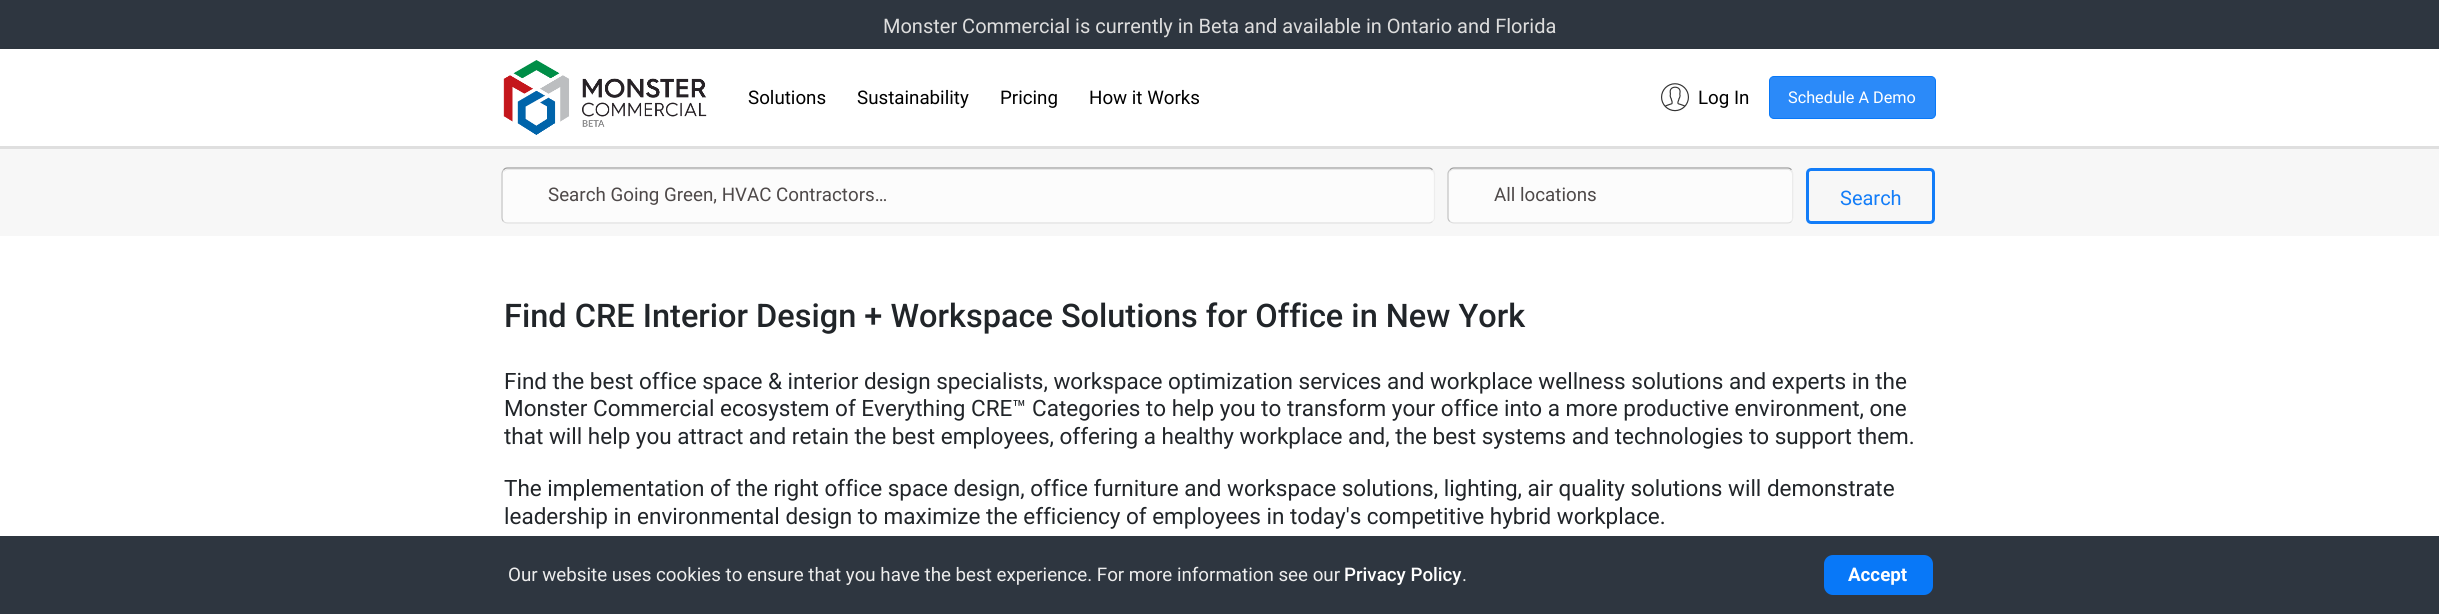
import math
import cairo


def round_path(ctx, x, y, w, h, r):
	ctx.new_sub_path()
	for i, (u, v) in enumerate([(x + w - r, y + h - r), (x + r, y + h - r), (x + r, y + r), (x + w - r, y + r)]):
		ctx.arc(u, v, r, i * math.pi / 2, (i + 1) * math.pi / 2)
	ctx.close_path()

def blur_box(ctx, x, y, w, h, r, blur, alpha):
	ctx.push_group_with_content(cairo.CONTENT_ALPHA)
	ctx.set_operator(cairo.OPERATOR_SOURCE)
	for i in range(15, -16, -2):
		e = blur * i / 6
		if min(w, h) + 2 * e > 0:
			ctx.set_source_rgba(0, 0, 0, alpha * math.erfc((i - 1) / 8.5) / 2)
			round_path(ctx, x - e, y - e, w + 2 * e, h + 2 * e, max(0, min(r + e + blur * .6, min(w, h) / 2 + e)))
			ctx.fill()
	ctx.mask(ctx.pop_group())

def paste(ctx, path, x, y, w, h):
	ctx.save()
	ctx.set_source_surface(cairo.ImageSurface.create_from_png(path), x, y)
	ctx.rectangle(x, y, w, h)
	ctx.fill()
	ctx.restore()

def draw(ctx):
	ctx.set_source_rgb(1, 1, 1)
	ctx.paint()
	ctx.set_source_rgb(0.18, 0.212, 0.251)
	ctx.rectangle(0, 0, 2439, 49)
	ctx.fill()
	ctx.select_font_face('Roboto')
	ctx.set_font_size(20)
	ctx.set_source_rgb(0.867, 0.867, 0.867)
	ctx.move_to(883, 33)
	ctx.show_text('Monster Commercial is currently in Beta and available in Ontario and Florida')
	ctx.set_source_rgb(0, 0, 0)
	blur_box(ctx, 0, 50, 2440, 100, 0, 2.5, 0.1)
	ctx.set_source_rgb(1, 1, 1)
	ctx.rectangle(0, 49, 2439, 97)
	ctx.fill()
	ctx.set_source_rgb(0.875, 0.875, 0.875)
	ctx.rectangle(0, 146, 2439, 3)
	ctx.fill()
	paste(ctx, 'media/1.png', 503, 60, 204, 75)
	ctx.set_font_size(18.75)
	ctx.set_source_rgb(0, 0, 0)
	for x, y, s in [
		(748, 104, 'Solutions'),
		(857, 104, 'Sustainability'),
		(1000, 104, 'Pricing'),
		(1089, 104, 'How it Works'),
	]:
		ctx.move_to(x, y)
		ctx.show_text(s)
	paste(ctx, 'media/2.png', 1661, 83, 28, 29)
	ctx.move_to(1698, 104)
	ctx.show_text('Log In')
	ctx.set_source_rgb(0.169, 0.541, 0.973)
	round_path(ctx, 1769.5, 76.5, 166, 42, 4.5)
	ctx.fill_preserve()
	ctx.set_source_rgb(0.035, 0.471, 0.969)
	ctx.set_line_width(1)
	ctx.stroke()
	ctx.set_font_size(16.25)
	ctx.set_source_rgb(1, 1, 1)
	ctx.move_to(1788, 103)
	ctx.show_text('Schedule A Demo')
	ctx.set_source_rgb(0.965, 0.965, 0.965)
	ctx.rectangle(0, 149, 2439, 87)
	ctx.fill()
	ctx.set_source_rgb(0.988, 0.988, 0.988)
	round_path(ctx, 501, 168, 934, 56, 6)
	ctx.fill()
	ctx.set_source_rgb(0.914, 0.914, 0.914)
	ctx.new_path()
	ctx.move_to(508, 170)
	ctx.line_to(1429, 170)
	ctx.curve_to(1432, 170, 1434, 172, 1434, 175)
	ctx.line_to(1434, 174)
	ctx.curve_to(1434, 171, 1432, 169, 1429, 169)
	ctx.line_to(508, 169)
	ctx.curve_to(506, 169, 504, 170, 504, 172)
	ctx.curve_to(505, 171, 506, 170, 508, 170)
	ctx.close_path()
	ctx.fill()
	ctx.new_path()
	ctx.move_to(503.5, 170)
	ctx.curve_to(504.5, 168.5, 506, 168, 507.5, 168)
	ctx.line_to(1429, 168)
	ctx.curve_to(1430, 168, 1431.5, 168.5, 1432.5, 170)
	ctx.set_source_rgb(0.608, 0.608, 0.608)
	ctx.set_line_width(1.2)
	ctx.stroke()
	ctx.new_path()
	ctx.move_to(1432.5, 170)
	ctx.curve_to(1434, 171, 1434.5, 172.5, 1434.5, 174)
	ctx.line_to(1434.5, 217.5)
	ctx.curve_to(1434.5, 219, 1434, 220.5, 1432.5, 221.5)
	ctx.set_source_rgb(0.929, 0.929, 0.929)
	ctx.stroke()
	ctx.new_path()
	ctx.move_to(1432.5, 221.5)
	ctx.curve_to(1431.5, 222.5, 1430, 223, 1429, 223)
	ctx.line_to(507.5, 223)
	ctx.curve_to(506, 223, 504.5, 222.5, 503.5, 221.5)
	ctx.set_source_rgb(0.867, 0.867, 0.867)
	ctx.stroke()
	ctx.new_path()
	ctx.move_to(503.5, 221.5)
	ctx.curve_to(502.5, 220.5, 502, 219, 502, 217.5)
	ctx.line_to(502, 174)
	ctx.curve_to(502, 172.5, 502.5, 171, 503.5, 170)
	ctx.set_source_rgb(0.761, 0.761, 0.761)
	ctx.stroke()
	ctx.set_font_size(18.75)
	ctx.set_source_rgb(0.306, 0.286, 0.286)
	ctx.move_to(548, 201)
	ctx.show_text('Search Going Green, HVAC Contractors…')
	ctx.set_source_rgb(0.988, 0.988, 0.988)
	round_path(ctx, 1448, 168, 346, 56, 6)
	ctx.fill()
	ctx.set_source_rgb(0.914, 0.914, 0.914)
	ctx.new_path()
	ctx.move_to(1454, 170)
	ctx.line_to(1788, 170)
	ctx.curve_to(1790, 170, 1792, 172, 1792, 175)
	ctx.line_to(1792, 219)
	ctx.line_to(1791, 222)
	ctx.curve_to(1792, 221, 1793, 219, 1793, 218)
	ctx.line_to(1793, 174)
	ctx.curve_to(1793, 171, 1791, 169, 1788, 169)
	ctx.line_to(1454, 169)
	ctx.curve_to(1451, 169, 1449, 171, 1449, 174)
	ctx.line_to(1449, 175)
	ctx.curve_to(1449, 172, 1451, 170, 1454, 170)
	ctx.close_path()
	ctx.fill()
	ctx.new_path()
	ctx.move_to(1450, 170)
	ctx.curve_to(1451, 168.5, 1452.5, 168, 1454, 168)
	ctx.line_to(1787.5, 168)
	ctx.curve_to(1789, 168, 1790.5, 168.5, 1791.5, 170)
	ctx.set_source_rgb(0.608, 0.608, 0.608)
	ctx.stroke()
	ctx.new_path()
	ctx.move_to(1791.5, 170)
	ctx.curve_to(1792.5, 171, 1793, 172.5, 1793, 174)
	ctx.line_to(1793, 217.5)
	ctx.curve_to(1793, 219, 1792.5, 220.5, 1791.5, 221.5)
	ctx.set_source_rgb(0.929, 0.929, 0.929)
	ctx.stroke()
	ctx.new_path()
	ctx.move_to(1791.5, 221.5)
	ctx.curve_to(1790.5, 222.5, 1789, 223, 1787.5, 223)
	ctx.line_to(1454, 223)
	ctx.curve_to(1452.5, 223, 1451, 222.5, 1450, 221.5)
	ctx.set_source_rgb(0.867, 0.867, 0.867)
	ctx.stroke()
	ctx.new_path()
	ctx.move_to(1450, 221.5)
	ctx.curve_to(1448.5, 220.5, 1448, 219, 1448, 217.5)
	ctx.line_to(1448, 174)
	ctx.curve_to(1448, 172.5, 1448.5, 171, 1450, 170)
	ctx.set_source_rgb(0.761, 0.761, 0.761)
	ctx.stroke()
	ctx.set_source_rgb(0.306, 0.286, 0.286)
	ctx.move_to(1494, 201)
	ctx.show_text('All locations')
	round_path(ctx, 1807.5, 169.5, 126, 53, 3.5)
	ctx.set_source_rgb(0.075, 0.49, 0.969)
	ctx.set_line_width(3)
	ctx.stroke()
	ctx.set_font_size(20)
	ctx.move_to(1840, 205)
	ctx.show_text('Search')
	ctx.select_font_face('Roboto Medium')
	ctx.set_font_size(32.5)
	ctx.set_source_rgb(0.129, 0.145, 0.161)
	ctx.move_to(504, 327)
	ctx.show_text('Find CRE Interior Design + Workspace Solutions for Office in New York')
	ctx.select_font_face('Roboto')
	ctx.set_font_size(22.5)
	for x, y, s in [
		(504, 389, 'Find the best office space & interior design specialists, workspace optimization services and workplace wellness solutions and experts in the'),
		(504, 416, 'Monster Commercial ecosystem of Everything CRE™ Categories to help you to transform your office into a more productive environment, one'),
		(504, 444, 'that will help you attract and retain the best employees, offering a healthy workplace and, the best systems and technologies to support them.'),
		(504, 496, 'The implementation of the right office space design, office furniture and workspace solutions, lighting, air quality solutions will demonstrate'),
		(504, 524, 'leadership in environmental design to maximize the efficiency of employees in today\'s competitive hybrid workplace.'),
	]:
		ctx.move_to(x, y)
		ctx.show_text(s)
	ctx.set_source_rgb(0.18, 0.212, 0.251)
	ctx.rectangle(0, 536, 2439, 78)
	ctx.fill()
	ctx.set_font_size(18.75)
	ctx.set_source_rgb(0.929, 0.929, 0.929)
	ctx.move_to(508, 581)
	ctx.show_text('Our website uses cookies to ensure that you have the best experience. For more information see our')
	ctx.select_font_face('Roboto Medium')
	ctx.set_source_rgb(1, 1, 1)
	ctx.move_to(1344, 581)
	ctx.show_text('Privacy Policy')
	ctx.select_font_face('Roboto')
	ctx.set_source_rgb(0.929, 0.929, 0.929)
	ctx.move_to(1462, 581)
	ctx.show_text('.')
	ctx.set_source_rgb(0.035, 0.471, 0.969)
	round_path(ctx, 1824, 555, 109, 40, 9)
	ctx.fill()
	ctx.select_font_face('Roboto', cairo.FONT_SLANT_NORMAL, cairo.FONT_WEIGHT_BOLD)
	ctx.set_source_rgb(1, 1, 1)
	ctx.move_to(1848, 581)
	ctx.show_text('Accept')


surface = cairo.ImageSurface(cairo.FORMAT_RGB24, 2439, 614)
ctx = cairo.Context(surface)
options = cairo.FontOptions()
options.set_hint_metrics(cairo.HINT_METRICS_OFF)
options.set_hint_style(cairo.HINT_STYLE_NONE)
ctx.set_font_options(options)
ctx.set_miter_limit(4)
draw(ctx)
surface.write_to_png('image.png')
